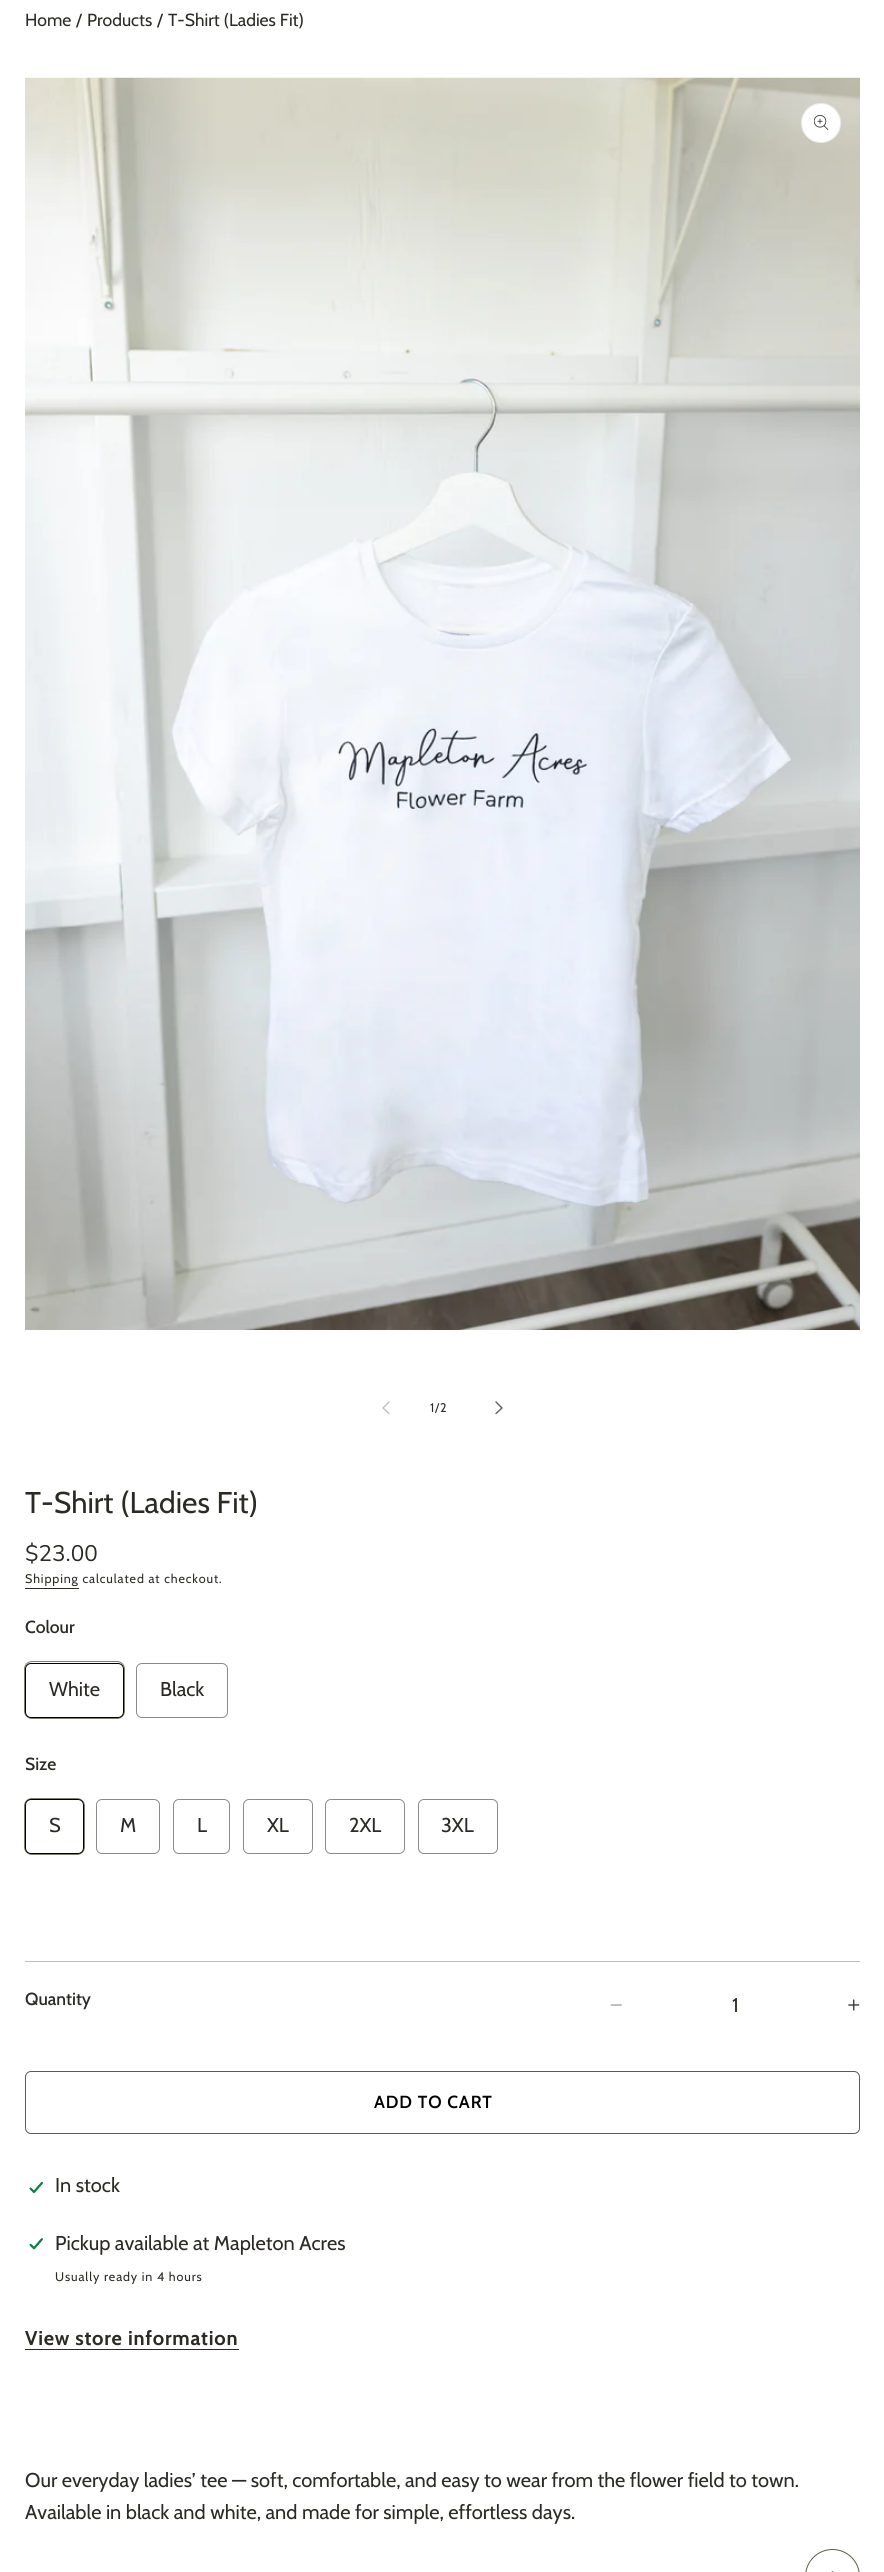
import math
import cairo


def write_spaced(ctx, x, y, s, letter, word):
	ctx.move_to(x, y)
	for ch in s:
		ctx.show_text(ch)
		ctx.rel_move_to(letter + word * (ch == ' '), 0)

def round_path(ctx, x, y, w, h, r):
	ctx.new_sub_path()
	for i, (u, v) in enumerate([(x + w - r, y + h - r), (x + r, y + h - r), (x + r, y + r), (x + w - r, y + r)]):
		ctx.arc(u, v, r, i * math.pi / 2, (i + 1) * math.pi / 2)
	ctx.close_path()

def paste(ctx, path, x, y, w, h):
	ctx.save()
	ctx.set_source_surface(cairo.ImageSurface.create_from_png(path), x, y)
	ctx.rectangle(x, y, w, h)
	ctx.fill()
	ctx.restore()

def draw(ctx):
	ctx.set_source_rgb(1, 1, 1)
	ctx.paint()
	ctx.select_font_face('Cabin')
	ctx.set_font_size(17.5)
	ctx.set_source_rgb(0.173, 0.165, 0.145)
	for x, y, s in [
		(25, 26, 'Home'),
		(76, 26, '/'),
		(87, 26, 'Products'),
		(157, 26, '/'),
		(168, 26, 'T-Shirt (Ladies Fit)'),
	]:
		ctx.move_to(x, y)
		ctx.show_text(s)
	paste(ctx, 'media/1.png', 25, 77, 835, 1253)
	ctx.set_source_rgb(1, 1, 1)
	ctx.arc(821, 123, 20, 0, 2 * math.pi)
	ctx.fill()
	ctx.arc(821, 123, 19.5, 0, 2 * math.pi)
	ctx.set_source_rgba(0.173, 0.165, 0.145, 0.1)
	ctx.set_line_width(1)
	ctx.stroke()
	paste(ctx, 'media/2.png', 814, 115, 15, 15)
	ctx.new_path()
	ctx.move_to(389, 1402)
	ctx.line_to(383, 1408)
	ctx.line_to(389, 1413.5)
	ctx.set_source_rgb(0.753, 0.749, 0.745)
	ctx.set_line_width(1.4)
	ctx.set_line_cap(cairo.LINE_CAP_ROUND)
	ctx.set_line_join(cairo.LINE_JOIN_ROUND)
	ctx.stroke()
	ctx.set_font_size(12.5)
	ctx.set_source_rgb(0.173, 0.165, 0.145)
	write_spaced(ctx, 430, 1412, '1/2', 0.9, 0)
	ctx.new_path()
	ctx.move_to(496, 1413.5)
	ctx.line_to(502, 1408)
	ctx.line_to(496, 1402)
	ctx.set_source_rgb(0.38, 0.373, 0.361)
	ctx.stroke()
	ctx.set_font_size(30)
	ctx.set_source_rgb(0.173, 0.165, 0.145)
	ctx.move_to(25, 1513)
	ctx.show_text('T-Shirt (Ladies Fit)')
	ctx.select_font_face('Nunito')
	ctx.set_font_size(22.5)
	ctx.move_to(25, 1561)
	ctx.show_text('$23.00')
	ctx.select_font_face('Cabin')
	ctx.set_font_size(12.5)
	write_spaced(ctx, 25, 1583, 'Shipping calculated at checkout.', 0.9, 0)
	ctx.rectangle(25, 1588, 54, 1)
	ctx.fill()
	ctx.select_font_face('Cabin Medium')
	ctx.set_font_size(17.5)
	ctx.move_to(25, 1633)
	ctx.show_text('Colour')
	round_path(ctx, 24.5, 1661.5, 100, 57, 7.5)
	ctx.set_source_rgb(0.49, 0.49, 0.431)
	ctx.set_line_width(1)
	ctx.set_line_cap(cairo.LINE_CAP_BUTT)
	ctx.set_line_join(cairo.LINE_JOIN_MITER)
	ctx.stroke()
	round_path(ctx, 25.5, 1663.5, 98, 54, 5.5)
	ctx.set_source_rgb(0, 0, 0)
	ctx.stroke()
	ctx.select_font_face('Cabin')
	ctx.set_font_size(20)
	ctx.set_source_rgb(0.173, 0.165, 0.145)
	ctx.move_to(49, 1696)
	ctx.show_text('White')
	round_path(ctx, 136.5, 1663.5, 91, 54, 5.5)
	ctx.set_source_rgb(0.545, 0.541, 0.529)
	ctx.stroke()
	ctx.set_source_rgb(0.173, 0.165, 0.145)
	ctx.move_to(160, 1696)
	ctx.show_text('Black')
	ctx.select_font_face('Cabin Medium')
	ctx.set_font_size(17.5)
	ctx.move_to(25, 1770)
	ctx.show_text('Size')
	round_path(ctx, 24.5, 1798.5, 60, 56, 7.5)
	ctx.set_source_rgb(0.49, 0.49, 0.431)
	ctx.stroke()
	round_path(ctx, 25.5, 1799.5, 58, 54, 5.5)
	ctx.set_source_rgb(0, 0, 0)
	ctx.stroke()
	ctx.select_font_face('Cabin')
	ctx.set_font_size(20)
	ctx.set_source_rgb(0.173, 0.165, 0.145)
	ctx.move_to(49, 1832)
	ctx.show_text('S')
	round_path(ctx, 96.5, 1799.5, 63, 54, 5.5)
	ctx.set_source_rgb(0.545, 0.541, 0.529)
	ctx.stroke()
	ctx.set_source_rgb(0.173, 0.165, 0.145)
	ctx.move_to(120, 1832)
	ctx.show_text('M')
	round_path(ctx, 173.5, 1799.5, 56, 54, 5.5)
	ctx.set_source_rgb(0.545, 0.541, 0.529)
	ctx.stroke()
	ctx.set_source_rgb(0.173, 0.165, 0.145)
	ctx.move_to(197, 1832)
	ctx.show_text('L')
	round_path(ctx, 243.5, 1799.5, 69, 54, 5.5)
	ctx.set_source_rgb(0.545, 0.541, 0.529)
	ctx.stroke()
	ctx.set_source_rgb(0.173, 0.165, 0.145)
	ctx.move_to(267, 1832)
	ctx.show_text('XL')
	round_path(ctx, 325.5, 1799.5, 79, 54, 5.5)
	ctx.set_source_rgb(0.545, 0.541, 0.529)
	ctx.stroke()
	ctx.set_source_rgb(0.173, 0.165, 0.145)
	ctx.move_to(349, 1832)
	ctx.show_text('2XL')
	round_path(ctx, 418.5, 1799.5, 79, 54, 5.5)
	ctx.set_source_rgb(0.545, 0.541, 0.529)
	ctx.stroke()
	ctx.set_source_rgb(0.173, 0.165, 0.145)
	ctx.move_to(441, 1832)
	ctx.show_text('3XL')
	ctx.set_source_rgb(0.753, 0.749, 0.745)
	ctx.rectangle(25, 1961, 835, 1)
	ctx.fill()
	ctx.select_font_face('Cabin Medium')
	ctx.set_font_size(17.5)
	ctx.set_source_rgb(0.173, 0.165, 0.145)
	ctx.move_to(25, 2005)
	ctx.show_text('Quantity')
	paste(ctx, 'media/3.png', 610, 2004, 12, 2)
	ctx.select_font_face('Cabin')
	ctx.set_font_size(20)
	ctx.move_to(732, 2012)
	ctx.show_text('1')
	paste(ctx, 'media/4.png', 848, 1999, 12, 12)
	round_path(ctx, 25.5, 2071.5, 834, 62, 5.5)
	ctx.set_source_rgb(0.361, 0.361, 0.29)
	ctx.stroke()
	ctx.select_font_face('Cabin SemiBold')
	ctx.set_font_size(17.5)
	ctx.set_source_rgb(0, 0, 0)
	write_spaced(ctx, 374, 2108, 'ADD TO CART', 0.9, 0)
	paste(ctx, 'media/5.png', 29, 2181, 14, 13)
	ctx.select_font_face('Cabin')
	ctx.set_font_size(20)
	ctx.set_source_rgb(0.173, 0.165, 0.145)
	ctx.move_to(55, 2192)
	ctx.show_text('In stock')
	paste(ctx, 'media/6.png', 29, 2237, 15, 13)
	ctx.move_to(55, 2250)
	ctx.show_text('Pickup available at Mapleton Acres')
	ctx.set_font_size(12.5)
	write_spaced(ctx, 55, 2281, 'Usually ready in 4 hours', 0.9, 0)
	ctx.select_font_face('Cabin', cairo.FONT_SLANT_NORMAL, cairo.FONT_WEIGHT_BOLD)
	ctx.set_font_size(20)
	write_spaced(ctx, 25, 2345, 'View store information', 0.75, 0)
	ctx.rectangle(25, 2349, 214, 1)
	ctx.fill()
	ctx.select_font_face('Cabin')
	ctx.move_to(25, 2487)
	ctx.show_text('Our everyday ladies’ tee — soft, comfortable, and easy to wear from the flower field to town.')
	ctx.move_to(25, 2519)
	ctx.show_text('Available in black and white, and made for simple, effortless days.')
	round_path(ctx, 805.5, 2549.5, 54, 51, 27)
	ctx.set_source_rgb(0.361, 0.361, 0.29)
	ctx.stroke()
	ctx.new_path()
	ctx.move_to(841, 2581)
	ctx.line_to(832.5, 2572.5)
	ctx.line_to(824, 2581)
	ctx.set_source_rgb(0, 0, 0)
	ctx.set_line_width(2.1)
	ctx.set_line_cap(cairo.LINE_CAP_ROUND)
	ctx.set_line_join(cairo.LINE_JOIN_ROUND)
	ctx.stroke()


surface = cairo.ImageSurface(cairo.FORMAT_RGB24, 884, 2572)
ctx = cairo.Context(surface)
options = cairo.FontOptions()
options.set_hint_metrics(cairo.HINT_METRICS_OFF)
options.set_hint_style(cairo.HINT_STYLE_NONE)
ctx.set_font_options(options)
ctx.set_miter_limit(4)
draw(ctx)
surface.write_to_png('image.png')
